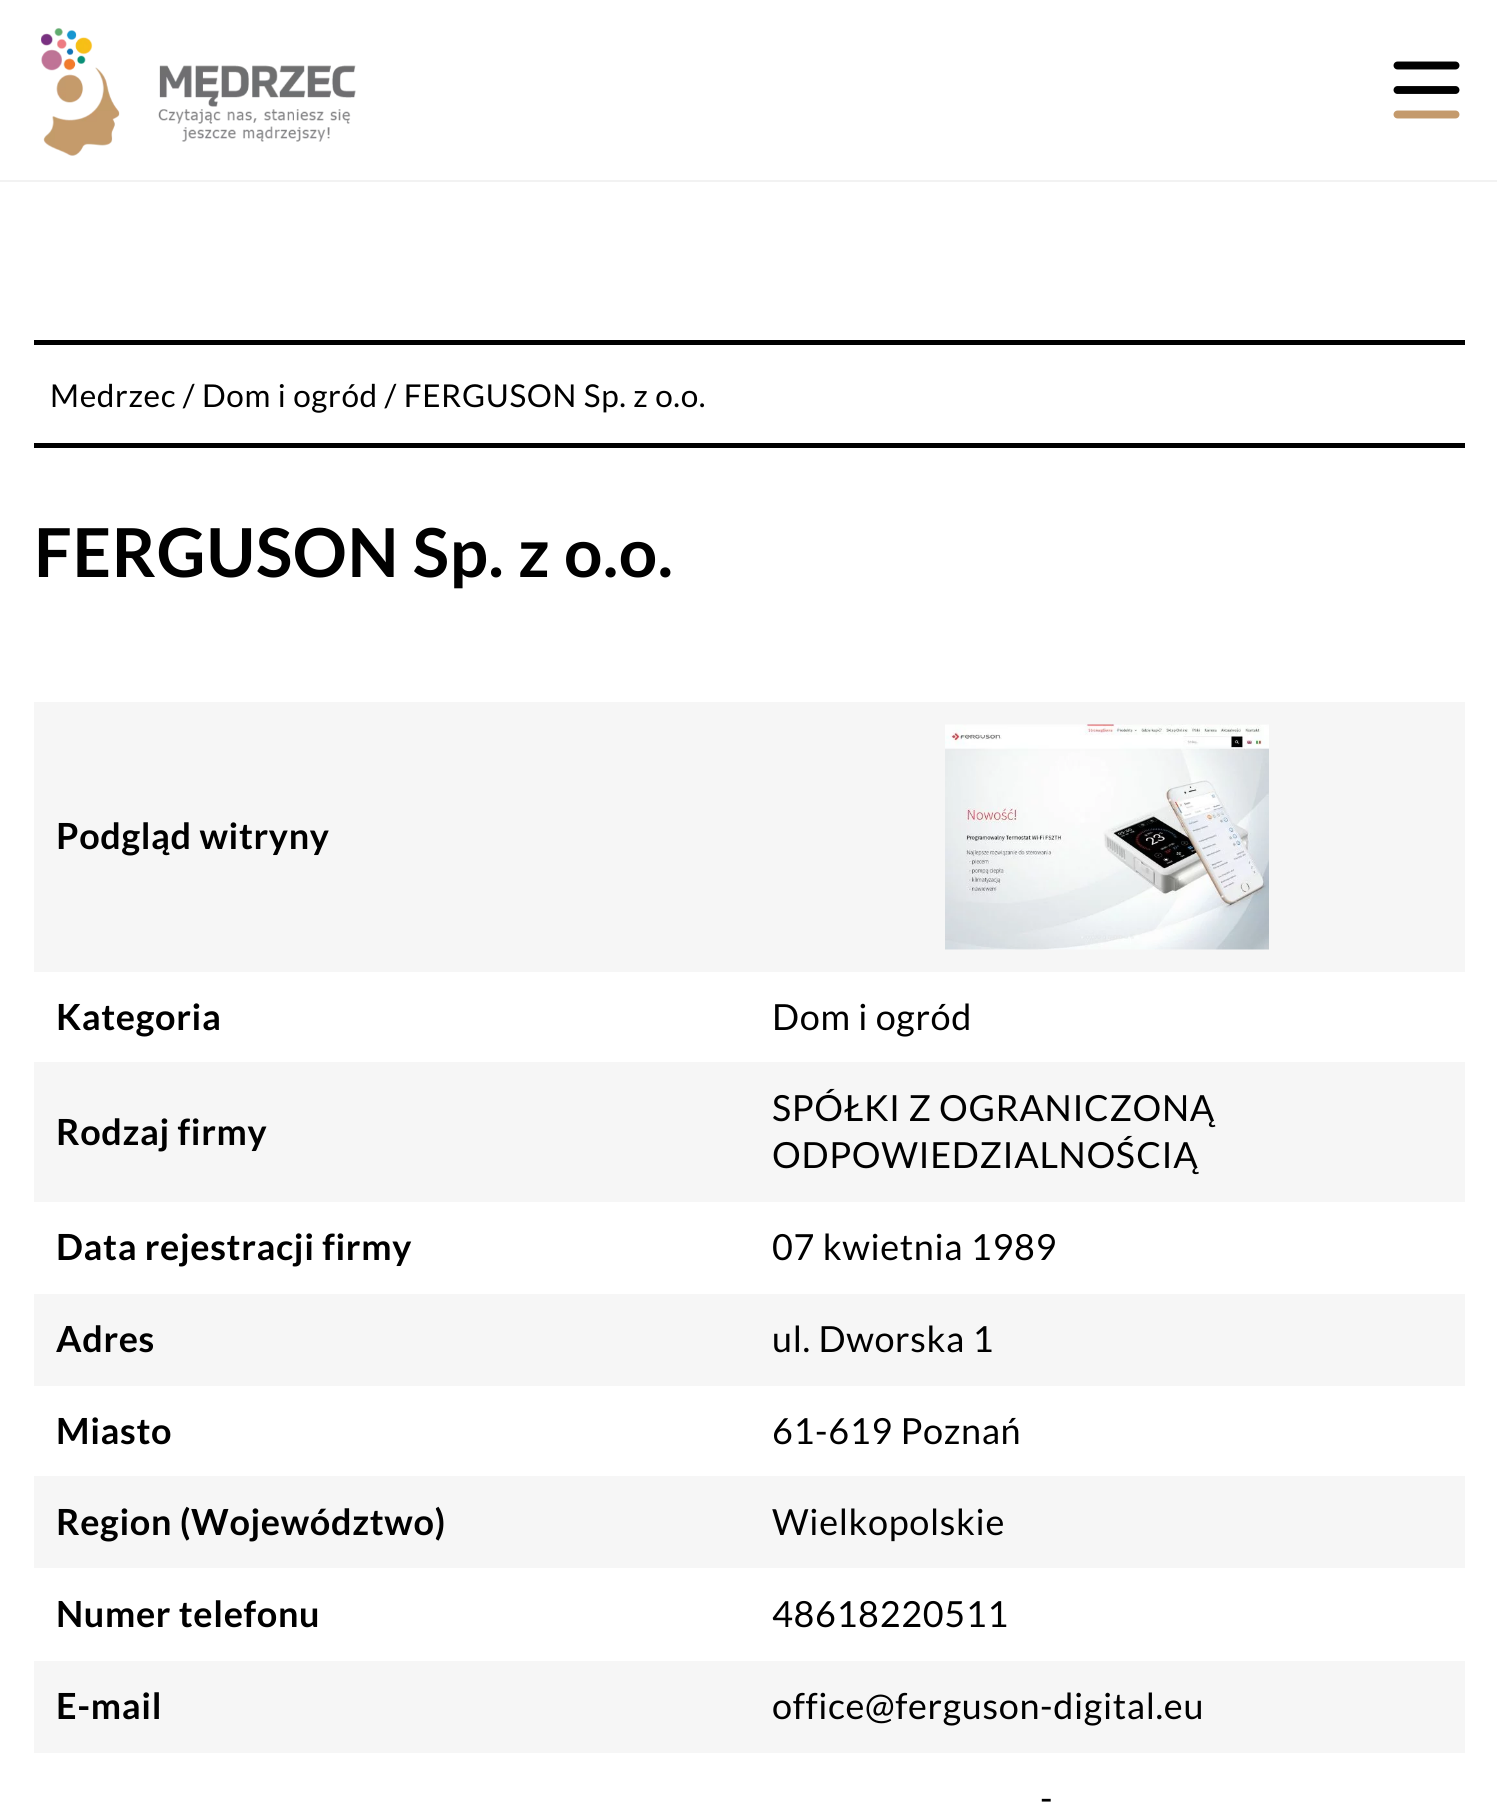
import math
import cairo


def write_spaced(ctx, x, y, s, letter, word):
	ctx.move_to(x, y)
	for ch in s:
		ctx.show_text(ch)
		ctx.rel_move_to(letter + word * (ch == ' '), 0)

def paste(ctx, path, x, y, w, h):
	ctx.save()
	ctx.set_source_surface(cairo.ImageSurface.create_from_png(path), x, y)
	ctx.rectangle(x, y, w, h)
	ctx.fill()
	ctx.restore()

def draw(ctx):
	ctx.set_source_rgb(1, 1, 1)
	ctx.paint()
	ctx.set_source_rgb(0.949, 0.949, 0.949)
	ctx.rectangle(0, 180, 1497, 2)
	ctx.fill()
	paste(ctx, 'media/1.png', 41, 28, 315, 128)
	ctx.new_path()
	ctx.move_to(1397.5, 65.5)
	ctx.line_to(1455.5, 65.5)
	ctx.set_source_rgb(0, 0, 0)
	ctx.set_line_width(7.9)
	ctx.set_line_cap(cairo.LINE_CAP_ROUND)
	ctx.stroke()
	ctx.new_path()
	ctx.move_to(1397.5, 90)
	ctx.line_to(1455.5, 90)
	ctx.stroke()
	ctx.new_path()
	ctx.move_to(1455.5, 114.5)
	ctx.line_to(1397.5, 114.5)
	ctx.set_source_rgb(0.769, 0.604, 0.424)
	ctx.stroke()
	ctx.set_source_rgb(0, 0, 0)
	ctx.rectangle(34, 340, 1431, 5)
	ctx.fill()
	ctx.rectangle(34, 443, 1431, 5)
	ctx.fill()
	ctx.select_font_face('Lato')
	ctx.set_font_size(31.5)
	write_spaced(ctx, 50, 407, 'Medrzec / Dom i ogród / FERGUSON Sp. z o.o.', 0.65, 0)
	ctx.select_font_face('Lato', cairo.FONT_SLANT_NORMAL, cairo.FONT_WEIGHT_BOLD)
	ctx.set_font_size(67.5)
	write_spaced(ctx, 34, 577, 'FERGUSON Sp. z o.o.', 0.65, 0)
	ctx.set_source_rgb(0.961, 0.961, 0.961)
	ctx.rectangle(34, 702, 1431, 270)
	ctx.fill()
	ctx.set_font_size(36)
	ctx.set_source_rgb(0, 0, 0)
	write_spaced(ctx, 56, 849, 'Podgląd witryny', 0.65, 0)
	paste(ctx, 'media/2.png', 945, 724, 324, 226)
	write_spaced(ctx, 56, 1030, 'Kategoria', 0.65, 0)
	ctx.select_font_face('Lato')
	write_spaced(ctx, 772, 1030, 'Dom i ogród', 0.65, 0)
	ctx.set_source_rgb(0.961, 0.961, 0.961)
	ctx.rectangle(34, 1062, 1431, 140)
	ctx.fill()
	ctx.select_font_face('Lato', cairo.FONT_SLANT_NORMAL, cairo.FONT_WEIGHT_BOLD)
	ctx.set_source_rgb(0, 0, 0)
	write_spaced(ctx, 56, 1145, 'Rodzaj firmy', 0.65, 0)
	ctx.select_font_face('Lato')
	write_spaced(ctx, 772, 1121, 'SPÓŁKI Z OGRANICZONĄ', 0.65, 0)
	write_spaced(ctx, 772, 1168, 'ODPOWIEDZIALNOŚCIĄ', 0.65, 0)
	ctx.select_font_face('Lato', cairo.FONT_SLANT_NORMAL, cairo.FONT_WEIGHT_BOLD)
	write_spaced(ctx, 56, 1260, 'Data rejestracji firmy', 0.65, 0)
	ctx.select_font_face('Lato')
	write_spaced(ctx, 772, 1260, '07 kwietnia 1989', 0.65, 0)
	ctx.set_source_rgb(0.961, 0.961, 0.961)
	ctx.rectangle(34, 1294, 1431, 92)
	ctx.fill()
	ctx.select_font_face('Lato', cairo.FONT_SLANT_NORMAL, cairo.FONT_WEIGHT_BOLD)
	ctx.set_source_rgb(0, 0, 0)
	write_spaced(ctx, 56, 1352, 'Adres', 0.65, 0)
	ctx.select_font_face('Lato')
	write_spaced(ctx, 772, 1352, 'ul. Dworska 1', 0.65, 0)
	ctx.select_font_face('Lato', cairo.FONT_SLANT_NORMAL, cairo.FONT_WEIGHT_BOLD)
	write_spaced(ctx, 56, 1444, 'Miasto', 0.65, 0)
	ctx.select_font_face('Lato')
	write_spaced(ctx, 772, 1444, '61-619 Poznań', 0.65, 0)
	ctx.set_source_rgb(0.961, 0.961, 0.961)
	ctx.rectangle(34, 1476, 1431, 92)
	ctx.fill()
	ctx.select_font_face('Lato', cairo.FONT_SLANT_NORMAL, cairo.FONT_WEIGHT_BOLD)
	ctx.set_source_rgb(0, 0, 0)
	write_spaced(ctx, 56, 1535, 'Region (Województwo)', 0.65, 0)
	ctx.select_font_face('Lato')
	write_spaced(ctx, 772, 1535, 'Wielkopolskie', 0.65, 0)
	ctx.select_font_face('Lato', cairo.FONT_SLANT_NORMAL, cairo.FONT_WEIGHT_BOLD)
	write_spaced(ctx, 56, 1627, 'Numer telefonu', 0.65, 0)
	ctx.select_font_face('Lato')
	write_spaced(ctx, 772, 1627, '48618220511', 0.65, 0)
	ctx.set_source_rgb(0.961, 0.961, 0.961)
	ctx.rectangle(34, 1661, 1431, 92)
	ctx.fill()
	ctx.select_font_face('Lato', cairo.FONT_SLANT_NORMAL, cairo.FONT_WEIGHT_BOLD)
	ctx.set_source_rgb(0, 0, 0)
	write_spaced(ctx, 56, 1719, 'E-mail', 0.65, 0)
	ctx.select_font_face('Lato')
	write_spaced(ctx, 772, 1719, 'office@ferguson-digital.eu', 0.65, 0)
	write_spaced(ctx, 1040, 1811, '-', 0.65, 0)


surface = cairo.ImageSurface(cairo.FORMAT_RGB24, 1497, 1802)
ctx = cairo.Context(surface)
options = cairo.FontOptions()
options.set_hint_metrics(cairo.HINT_METRICS_OFF)
options.set_hint_style(cairo.HINT_STYLE_NONE)
ctx.set_font_options(options)
ctx.set_miter_limit(4)
draw(ctx)
surface.write_to_png('image.png')
